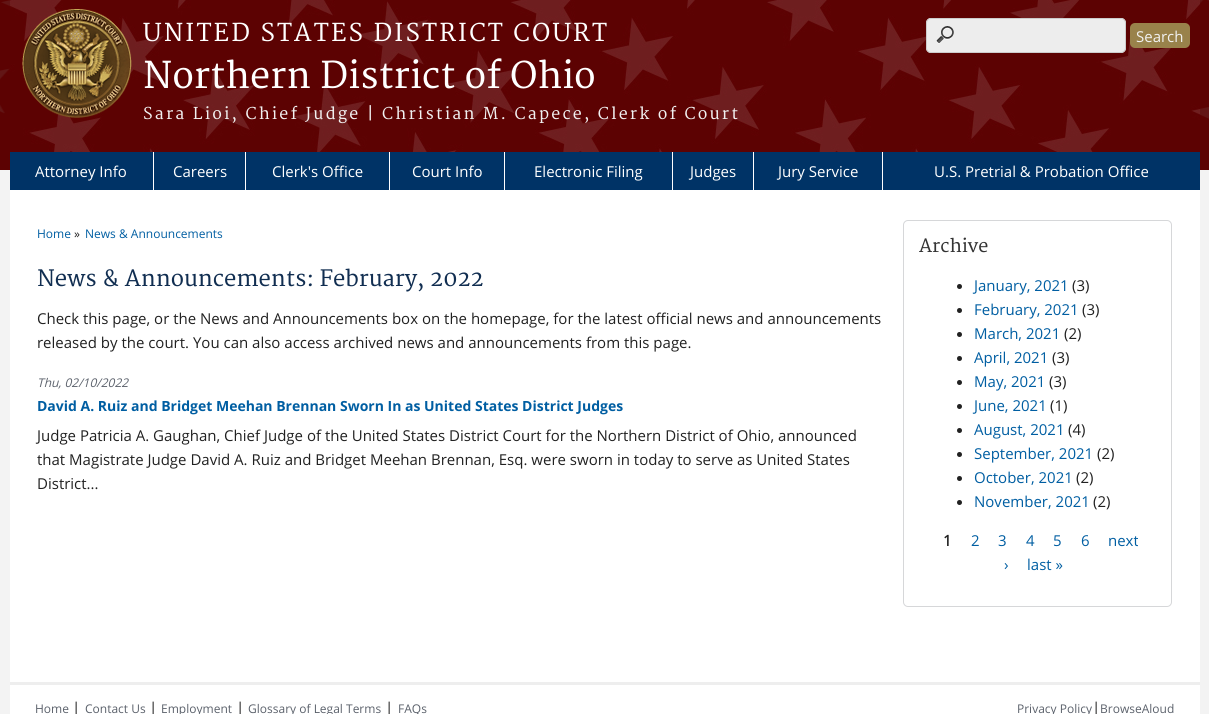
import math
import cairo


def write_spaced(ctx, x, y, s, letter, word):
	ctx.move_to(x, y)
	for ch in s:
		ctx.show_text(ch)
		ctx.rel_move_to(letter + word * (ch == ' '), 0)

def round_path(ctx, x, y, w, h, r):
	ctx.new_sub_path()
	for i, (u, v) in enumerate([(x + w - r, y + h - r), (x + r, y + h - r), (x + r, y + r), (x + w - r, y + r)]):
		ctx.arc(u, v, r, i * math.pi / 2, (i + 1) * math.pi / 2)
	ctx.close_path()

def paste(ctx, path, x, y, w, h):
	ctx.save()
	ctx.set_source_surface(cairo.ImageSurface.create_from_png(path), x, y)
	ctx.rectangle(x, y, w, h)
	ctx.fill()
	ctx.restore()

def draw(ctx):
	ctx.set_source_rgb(0.953, 0.953, 0.953)
	ctx.paint()
	ctx.set_source_rgb(0.361, 0.008, 0.008)
	ctx.rectangle(0, 0, 1209, 170)
	ctx.fill()
	paste(ctx, 'media/1.png', 0, 0, 1209, 119)
	ctx.set_source_rgb(1, 1, 1)
	ctx.rectangle(10, 190, 1190, 524)
	ctx.fill()
	paste(ctx, 'media/2.png', 10, 0, 1190, 152)
	paste(ctx, 'media/3.png', 22, 9, 110, 109)
	ctx.select_font_face('Merriweather')
	ctx.set_font_size(24)
	write_spaced(ctx, 143, 41, 'UNITED STATES DISTRICT COURT', 2.2, 0)
	ctx.set_font_size(36)
	ctx.move_to(143, 88)
	ctx.show_text('Northern District of Ohio')
	ctx.set_font_size(16)
	ctx.set_source_rgb(0.945, 0.945, 0.945)
	write_spaced(ctx, 143, 119, 'Sara Lioi, Chief Judge | Christian M. Capece, Clerk of Court', 2.2, 0)
	ctx.set_source_rgb(0.929, 0.929, 0.929)
	round_path(ctx, 926, 18, 200, 35, 5)
	ctx.fill()
	paste(ctx, 'media/4.png', 936, 26, 18, 18)
	round_path(ctx, 926.5, 18.5, 199, 34, 4.5)
	ctx.set_source_rgb(0.8, 0.8, 0.8)
	ctx.set_line_width(1)
	ctx.stroke()
	ctx.set_source_rgb(0.6, 0.51, 0.294)
	round_path(ctx, 1130, 23, 60, 25, 5)
	ctx.fill()
	ctx.select_font_face('Open Sans')
	ctx.set_font_size(15)
	ctx.set_source_rgb(0.945, 0.945, 0.945)
	ctx.move_to(1136, 42)
	ctx.show_text('Search')
	ctx.set_source_rgb(0, 0.2, 0.4)
	ctx.rectangle(10, 152, 1190, 38)
	ctx.fill()
	ctx.set_source_rgb(1, 1, 1)
	ctx.rectangle(153, 152, 1, 38)
	ctx.fill()
	ctx.move_to(35, 177)
	ctx.show_text('Attorney Info')
	ctx.rectangle(245, 152, 1, 38)
	ctx.fill()
	ctx.move_to(173, 177)
	ctx.show_text('Careers')
	ctx.rectangle(389, 152, 1, 38)
	ctx.fill()
	ctx.move_to(272, 177)
	ctx.show_text('Clerk\'s Office')
	ctx.rectangle(504, 152, 1, 38)
	ctx.fill()
	ctx.move_to(412, 177)
	ctx.show_text('Court Info')
	ctx.rectangle(672, 152, 1, 38)
	ctx.fill()
	ctx.move_to(534, 177)
	ctx.show_text('Electronic Filing')
	ctx.rectangle(753, 152, 1, 38)
	ctx.fill()
	ctx.move_to(690, 177)
	ctx.show_text('Judges')
	ctx.rectangle(882, 152, 1, 38)
	ctx.fill()
	ctx.move_to(778, 177)
	ctx.show_text('Jury Service')
	ctx.move_to(934, 177)
	ctx.show_text('U.S. Pretrial & Probation Office')
	ctx.set_font_size(12)
	ctx.set_source_rgb(0, 0.369, 0.635)
	ctx.move_to(37, 238)
	ctx.show_text('Home')
	ctx.set_source_rgb(0.129, 0.129, 0.129)
	ctx.move_to(74, 238)
	ctx.show_text('»')
	ctx.set_source_rgb(0, 0.369, 0.635)
	ctx.move_to(85, 238)
	ctx.show_text('News & Announcements')
	ctx.select_font_face('Merriweather')
	ctx.set_font_size(22)
	ctx.set_source_rgb(0.067, 0.18, 0.318)
	ctx.move_to(37, 286)
	ctx.show_text('News & Announcements: February, 2022')
	ctx.select_font_face('Open Sans')
	ctx.set_font_size(15)
	ctx.set_source_rgb(0.129, 0.129, 0.129)
	ctx.move_to(37, 324)
	ctx.show_text('Check this page, or the News and Announcements box on the homepage, for the latest official news and announcements')
	ctx.move_to(37, 348)
	ctx.show_text('released by the court. You can also access archived news and announcements from this page.')
	ctx.select_font_face('Open Sans', cairo.FONT_SLANT_ITALIC)
	ctx.set_font_size(12)
	ctx.set_source_rgb(0.357, 0.38, 0.42)
	ctx.move_to(37, 387)
	ctx.show_text('Thu, 02/10/2022')
	ctx.select_font_face('Open Sans', cairo.FONT_SLANT_NORMAL, cairo.FONT_WEIGHT_BOLD)
	ctx.set_font_size(14)
	ctx.set_source_rgb(0, 0.369, 0.635)
	ctx.move_to(37, 411)
	ctx.show_text('David A. Ruiz and Bridget Meehan Brennan Sworn In as United States District Judges')
	ctx.select_font_face('Open Sans')
	ctx.set_font_size(15)
	ctx.set_source_rgb(0.129, 0.129, 0.129)
	for x, y, s in [
		(37, 441, 'Judge Patricia A. Gaughan, Chief Judge of the United States District Court for the Northern District of Ohio, announced'),
		(37, 465, 'that Magistrate Judge David A. Ruiz and Bridget Meehan Brennan, Esq. were sworn in today to serve as United States'),
		(37, 489, 'District...'),
	]:
		ctx.move_to(x, y)
		ctx.show_text(s)
	round_path(ctx, 903.5, 220.5, 268, 386, 4.5)
	ctx.set_source_rgb(0.839, 0.843, 0.851)
	ctx.stroke()
	ctx.select_font_face('Merriweather')
	ctx.set_font_size(18)
	ctx.set_source_rgb(0.2, 0.2, 0.2)
	ctx.move_to(919, 252)
	ctx.show_text('Archive')
	ctx.set_source_rgb(0.129, 0.129, 0.129)
	ctx.new_path()
	ctx.arc(959.5, 286.5, 2.5, 0, 2 * math.pi)
	ctx.fill()
	ctx.select_font_face('Open Sans')
	ctx.set_font_size(15)
	ctx.set_source_rgb(0, 0.369, 0.635)
	ctx.move_to(974, 291)
	ctx.show_text('January, 2021')
	ctx.set_source_rgb(0.129, 0.129, 0.129)
	ctx.move_to(1072, 291)
	ctx.show_text('(3)')
	ctx.new_path()
	ctx.arc(959.5, 310.5, 2.5, 0, 2 * math.pi)
	ctx.fill()
	ctx.set_source_rgb(0, 0.369, 0.635)
	ctx.move_to(974, 315)
	ctx.show_text('February, 2021')
	ctx.set_source_rgb(0.129, 0.129, 0.129)
	ctx.move_to(1082, 315)
	ctx.show_text('(3)')
	ctx.new_path()
	ctx.arc(959.5, 334.5, 2.5, 0, 2 * math.pi)
	ctx.fill()
	ctx.set_source_rgb(0, 0.369, 0.635)
	ctx.move_to(974, 339)
	ctx.show_text('March, 2021')
	ctx.set_source_rgb(0.129, 0.129, 0.129)
	ctx.move_to(1064, 339)
	ctx.show_text('(2)')
	ctx.new_path()
	ctx.arc(959.5, 358.5, 2.5, 0, 2 * math.pi)
	ctx.fill()
	ctx.set_source_rgb(0, 0.369, 0.635)
	ctx.move_to(974, 363)
	ctx.show_text('April, 2021')
	ctx.set_source_rgb(0.129, 0.129, 0.129)
	ctx.move_to(1052, 363)
	ctx.show_text('(3)')
	ctx.new_path()
	ctx.arc(959.5, 382.5, 2.5, 0, 2 * math.pi)
	ctx.fill()
	ctx.set_source_rgb(0, 0.369, 0.635)
	ctx.move_to(974, 387)
	ctx.show_text('May, 2021')
	ctx.set_source_rgb(0.129, 0.129, 0.129)
	ctx.move_to(1049, 387)
	ctx.show_text('(3)')
	ctx.new_path()
	ctx.arc(959.5, 406.5, 2.5, 0, 2 * math.pi)
	ctx.fill()
	ctx.set_source_rgb(0, 0.369, 0.635)
	ctx.move_to(974, 411)
	ctx.show_text('June, 2021')
	ctx.set_source_rgb(0.129, 0.129, 0.129)
	ctx.move_to(1050, 411)
	ctx.show_text('(1)')
	ctx.new_path()
	ctx.arc(959.5, 430.5, 2.5, 0, 2 * math.pi)
	ctx.fill()
	ctx.set_source_rgb(0, 0.369, 0.635)
	ctx.move_to(974, 435)
	ctx.show_text('August, 2021')
	ctx.set_source_rgb(0.129, 0.129, 0.129)
	ctx.move_to(1068, 435)
	ctx.show_text('(4)')
	ctx.new_path()
	ctx.arc(959.5, 454.5, 2.5, 0, 2 * math.pi)
	ctx.fill()
	ctx.set_source_rgb(0, 0.369, 0.635)
	ctx.move_to(974, 459)
	ctx.show_text('September, 2021')
	ctx.set_source_rgb(0.129, 0.129, 0.129)
	ctx.move_to(1097, 459)
	ctx.show_text('(2)')
	ctx.new_path()
	ctx.arc(959.5, 478.5, 2.5, 0, 2 * math.pi)
	ctx.fill()
	ctx.set_source_rgb(0, 0.369, 0.635)
	ctx.move_to(974, 483)
	ctx.show_text('October, 2021')
	ctx.set_source_rgb(0.129, 0.129, 0.129)
	ctx.move_to(1076, 483)
	ctx.show_text('(2)')
	ctx.new_path()
	ctx.arc(959.5, 502.5, 2.5, 0, 2 * math.pi)
	ctx.fill()
	ctx.set_source_rgb(0, 0.369, 0.635)
	ctx.move_to(974, 507)
	ctx.show_text('November, 2021')
	ctx.set_source_rgb(0.129, 0.129, 0.129)
	ctx.move_to(1093, 507)
	ctx.show_text('(2)')
	ctx.select_font_face('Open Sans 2', cairo.FONT_SLANT_NORMAL, cairo.FONT_WEIGHT_BOLD)
	ctx.move_to(943, 546)
	ctx.show_text('1')
	ctx.select_font_face('Open Sans')
	ctx.set_source_rgb(0, 0.369, 0.635)
	for x, y, s in [
		(971, 546, '2'),
		(998, 546, '3'),
		(1026, 546, '4'),
		(1053, 546, '5'),
		(1081, 546, '6'),
		(1108, 546, 'next'),
		(1004, 570, '›'),
		(1027, 570, 'last »'),
	]:
		ctx.move_to(x, y)
		ctx.show_text(s)
	ctx.set_source_rgb(0.933, 0.933, 0.933)
	ctx.rectangle(10, 682, 1190, 3)
	ctx.fill()
	ctx.set_font_size(12)
	ctx.set_source_rgb(0.357, 0.38, 0.42)
	ctx.move_to(35, 713)
	ctx.show_text('Home')
	ctx.set_font_size(15)
	ctx.set_source_rgb(0.129, 0.129, 0.129)
	ctx.move_to(72, 713)
	ctx.show_text('|')
	ctx.set_font_size(12)
	ctx.set_source_rgb(0.357, 0.38, 0.42)
	ctx.move_to(85, 713)
	ctx.show_text('Contact Us')
	ctx.set_font_size(15)
	ctx.set_source_rgb(0.129, 0.129, 0.129)
	ctx.move_to(149, 713)
	ctx.show_text('|')
	ctx.set_font_size(12)
	ctx.set_source_rgb(0.357, 0.38, 0.42)
	ctx.move_to(161, 713)
	ctx.show_text('Employment')
	ctx.set_font_size(15)
	ctx.set_source_rgb(0.129, 0.129, 0.129)
	ctx.move_to(236, 713)
	ctx.show_text('|')
	ctx.set_font_size(12)
	ctx.set_source_rgb(0.357, 0.38, 0.42)
	ctx.move_to(248, 713)
	ctx.show_text('Glossary of Legal Terms')
	ctx.set_font_size(15)
	ctx.set_source_rgb(0.129, 0.129, 0.129)
	ctx.move_to(385, 713)
	ctx.show_text('|')
	ctx.set_font_size(12)
	ctx.set_source_rgb(0.357, 0.38, 0.42)
	ctx.move_to(398, 713)
	ctx.show_text('FAQs')
	ctx.move_to(1017, 713)
	ctx.show_text('Privacy Policy')
	ctx.set_font_size(15)
	ctx.set_source_rgb(0.129, 0.129, 0.129)
	ctx.move_to(1092, 713)
	ctx.show_text('|')
	ctx.set_font_size(12)
	ctx.set_source_rgb(0.357, 0.38, 0.42)
	ctx.move_to(1100, 713)
	ctx.show_text('BrowseAloud')


surface = cairo.ImageSurface(cairo.FORMAT_RGB24, 1209, 714)
ctx = cairo.Context(surface)
options = cairo.FontOptions()
options.set_hint_metrics(cairo.HINT_METRICS_OFF)
options.set_hint_style(cairo.HINT_STYLE_NONE)
ctx.set_font_options(options)
ctx.set_miter_limit(4)
draw(ctx)
surface.write_to_png('image.png')
